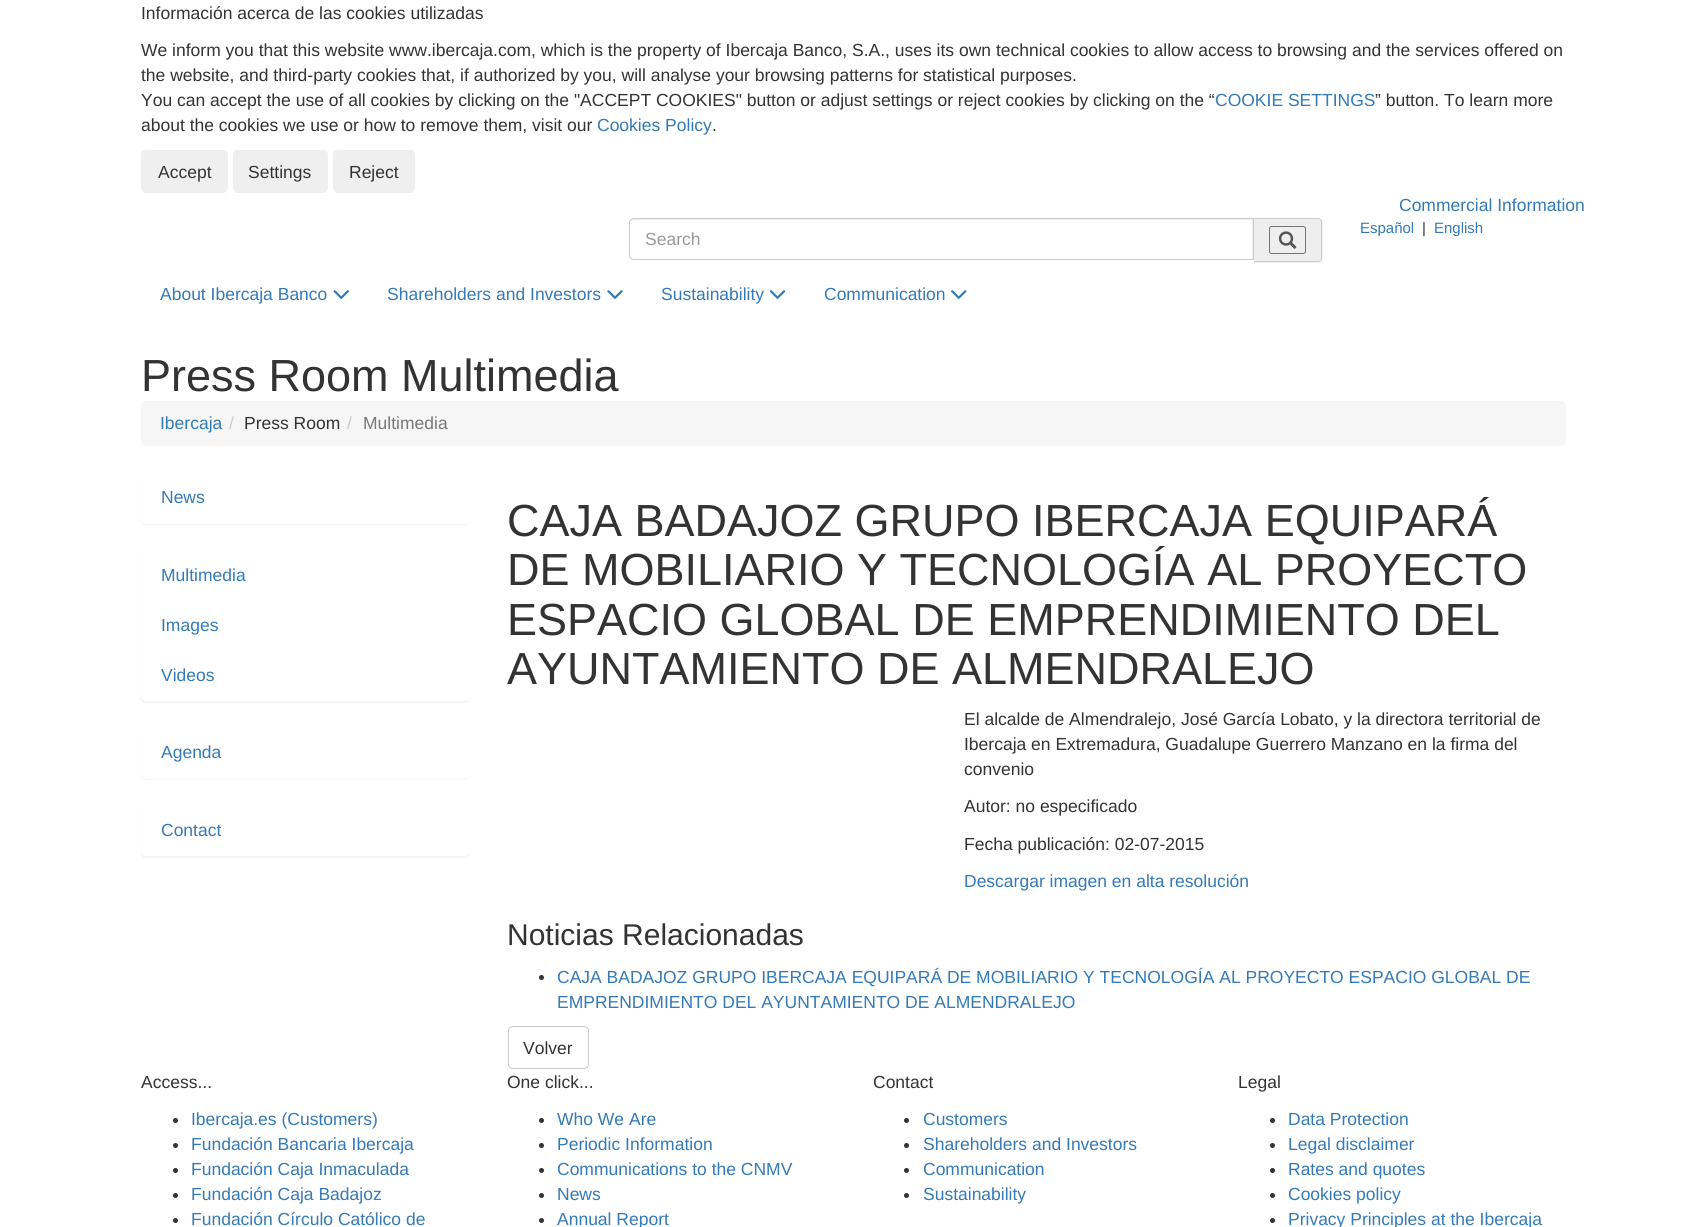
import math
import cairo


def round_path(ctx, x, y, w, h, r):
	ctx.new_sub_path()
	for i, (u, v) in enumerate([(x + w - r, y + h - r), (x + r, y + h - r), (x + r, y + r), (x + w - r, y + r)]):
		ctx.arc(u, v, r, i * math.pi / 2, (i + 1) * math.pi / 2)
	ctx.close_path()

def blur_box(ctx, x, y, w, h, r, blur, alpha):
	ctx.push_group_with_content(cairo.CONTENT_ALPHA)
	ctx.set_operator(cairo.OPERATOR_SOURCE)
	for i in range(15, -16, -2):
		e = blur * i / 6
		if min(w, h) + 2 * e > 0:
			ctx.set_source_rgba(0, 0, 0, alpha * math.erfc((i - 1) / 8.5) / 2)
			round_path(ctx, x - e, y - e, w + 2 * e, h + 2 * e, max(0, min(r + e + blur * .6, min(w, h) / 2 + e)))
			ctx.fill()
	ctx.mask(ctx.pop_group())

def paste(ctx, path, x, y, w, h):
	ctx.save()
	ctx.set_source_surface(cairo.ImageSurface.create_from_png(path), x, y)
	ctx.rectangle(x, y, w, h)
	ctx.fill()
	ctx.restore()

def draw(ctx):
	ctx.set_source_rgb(1, 1, 1)
	ctx.paint()
	ctx.select_font_face('Liberation Sans')
	ctx.set_font_size(17.5)
	ctx.set_source_rgb(0.2, 0.2, 0.2)
	for x, y, s in [
		(141, 19, 'Información acerca de las cookies utilizadas'),
		(141, 56, 'We inform you that this website www.ibercaja.com, which is the property of Ibercaja Banco, S.A., uses its own technical cookies to allow access to browsing and the services offered on'),
		(141, 81, 'the website, and third-party cookies that, if authorized by you, will analyse your browsing patterns for statistical purposes.'),
		(141, 106, 'You can accept the use of all cookies by clicking on the "ACCEPT COOKIES" button or adjust settings or reject cookies by clicking on the “'),
	]:
		ctx.move_to(x, y)
		ctx.show_text(s)
	ctx.set_source_rgb(0.2, 0.478, 0.718)
	ctx.move_to(1215, 106)
	ctx.show_text('COOKIE SETTINGS')
	ctx.set_source_rgb(0.2, 0.2, 0.2)
	ctx.move_to(1375, 106)
	ctx.show_text('” button. To learn more')
	ctx.move_to(141, 131)
	ctx.show_text('about the cookies we use or how to remove them, visit our')
	ctx.set_source_rgb(0.2, 0.478, 0.718)
	ctx.move_to(597, 131)
	ctx.show_text('Cookies Policy')
	ctx.set_source_rgb(0.2, 0.2, 0.2)
	ctx.move_to(712, 131)
	ctx.show_text('.')
	ctx.set_source_rgb(0.937, 0.937, 0.937)
	round_path(ctx, 141, 150, 87, 43, 5)
	ctx.fill()
	ctx.set_source_rgb(0.2, 0.2, 0.2)
	ctx.move_to(158, 178)
	ctx.show_text('Accept')
	ctx.set_source_rgb(0.937, 0.937, 0.937)
	round_path(ctx, 233, 150, 95, 43, 5)
	ctx.fill()
	ctx.set_source_rgb(0.2, 0.2, 0.2)
	ctx.move_to(248, 178)
	ctx.show_text('Settings')
	ctx.set_source_rgb(0.937, 0.937, 0.937)
	round_path(ctx, 333, 150, 82, 43, 5)
	ctx.fill()
	ctx.set_source_rgb(0.2, 0.2, 0.2)
	ctx.move_to(349, 178)
	ctx.show_text('Reject')
	ctx.set_source_rgb(0.2, 0.478, 0.718)
	ctx.move_to(1399, 211)
	ctx.show_text('Commercial Information')
	ctx.set_font_size(15)
	ctx.move_to(1360, 233)
	ctx.show_text('Español')
	ctx.set_source_rgb(0.2, 0.2, 0.2)
	ctx.move_to(1422, 233)
	ctx.show_text('|')
	ctx.set_source_rgb(0.2, 0.478, 0.718)
	ctx.move_to(1434, 233)
	ctx.show_text('English')
	ctx.set_source_rgb(0.925, 0.925, 0.925)
	ctx.new_path()
	ctx.move_to(634, 220)
	ctx.line_to(1252, 220)
	ctx.line_to(1252, 259)
	ctx.line_to(1253, 259)
	ctx.line_to(1253, 219)
	ctx.line_to(634, 219)
	ctx.curve_to(631, 219, 630, 221, 630, 224)
	ctx.curve_to(630, 222, 632, 220, 634, 220)
	ctx.close_path()
	ctx.fill()
	ctx.new_path()
	ctx.move_to(634, 218.5)
	ctx.line_to(1253.5, 218.5)
	ctx.line_to(1253.5, 259.5)
	ctx.line_to(634, 259.5)
	ctx.curve_to(631.5, 259.5, 629.5, 257.5, 629.5, 255)
	ctx.line_to(629.5, 223)
	ctx.curve_to(629.5, 220.5, 631.5, 218.5, 634, 218.5)
	ctx.close_path()
	ctx.set_source_rgb(0.8, 0.8, 0.8)
	ctx.set_line_width(1)
	ctx.stroke()
	ctx.set_font_size(17.5)
	ctx.set_source_rgb(0.6, 0.6, 0.6)
	ctx.move_to(645, 245)
	ctx.show_text('Search')
	ctx.set_source_rgb(0.933, 0.933, 0.933)
	ctx.new_path()
	ctx.move_to(1254, 218)
	ctx.line_to(1318, 218)
	ctx.curve_to(1321, 218, 1323, 220, 1323, 223)
	ctx.line_to(1323, 258)
	ctx.curve_to(1323, 261, 1321, 263, 1318, 263)
	ctx.line_to(1254, 263)
	ctx.close_path()
	ctx.fill()
	ctx.set_source_rgb(0.8, 0.8, 0.8)
	ctx.set_fill_rule(cairo.FILL_RULE_EVEN_ODD)
	ctx.new_path()
	ctx.move_to(1254, 218)
	ctx.line_to(1318, 218)
	ctx.curve_to(1320, 218, 1322, 220, 1322, 222)
	ctx.line_to(1322, 258)
	ctx.curve_to(1322, 260, 1320, 262, 1318, 262)
	ctx.line_to(1254, 262)
	ctx.close_path()
	ctx.move_to(1254, 219)
	ctx.line_to(1318, 219)
	ctx.curve_to(1320, 219, 1321, 220, 1321, 222)
	ctx.line_to(1321, 258)
	ctx.curve_to(1321, 260, 1320, 261, 1318, 261)
	ctx.line_to(1254, 261)
	ctx.close_path()
	ctx.fill()
	round_path(ctx, 1269.5, 226.5, 36, 27, 2)
	ctx.set_source_rgb(0.463, 0.463, 0.463)
	ctx.stroke()
	paste(ctx, 'media/1.png', 1278, 231, 19, 18)
	ctx.set_source_rgb(0.2, 0.478, 0.718)
	ctx.move_to(160, 300)
	ctx.show_text('About Ibercaja Banco')
	paste(ctx, 'media/2.png', 333, 290, 16, 9)
	ctx.move_to(387, 300)
	ctx.show_text('Shareholders and Investors')
	paste(ctx, 'media/3.png', 607, 290, 16, 9)
	ctx.move_to(661, 300)
	ctx.show_text('Sustainability')
	paste(ctx, 'media/4.png', 769, 290, 17, 9)
	ctx.move_to(824, 300)
	ctx.show_text('Communication')
	paste(ctx, 'media/5.png', 951, 290, 16, 9)
	ctx.set_font_size(45)
	ctx.set_source_rgb(0.2, 0.2, 0.2)
	ctx.move_to(141, 391)
	ctx.show_text('Press Room Multimedia')
	ctx.set_source_rgb(0.961, 0.961, 0.961)
	round_path(ctx, 141, 401, 1425, 45, 5)
	ctx.fill()
	ctx.set_font_size(17.5)
	ctx.set_source_rgb(0.2, 0.478, 0.718)
	ctx.move_to(160, 429)
	ctx.show_text('Ibercaja')
	ctx.set_source_rgb(0.8, 0.8, 0.8)
	ctx.move_to(229, 429)
	ctx.show_text('/')
	ctx.set_source_rgb(0.2, 0.2, 0.2)
	ctx.move_to(244, 429)
	ctx.show_text('Press Room')
	ctx.set_source_rgb(0.8, 0.8, 0.8)
	ctx.move_to(347, 429)
	ctx.show_text('/')
	ctx.set_source_rgb(0.467, 0.467, 0.467)
	ctx.move_to(363, 429)
	ctx.show_text('Multimedia')
	ctx.set_source_rgb(0, 0, 0)
	blur_box(ctx, 141, 473, 329, 52, 5, 0.5, 0.05)
	ctx.set_source_rgb(1, 1, 1)
	round_path(ctx, 141, 471, 329, 53, 5)
	ctx.fill()
	ctx.set_source_rgb(0.2, 0.478, 0.718)
	ctx.move_to(161, 503)
	ctx.show_text('News')
	ctx.set_source_rgb(0, 0, 0)
	blur_box(ctx, 141, 550, 329, 153, 5, 0.5, 0.05)
	ctx.set_source_rgb(1, 1, 1)
	round_path(ctx, 141, 549, 329, 152, 5)
	ctx.fill()
	ctx.set_source_rgb(0.2, 0.478, 0.718)
	for x, y, s in [
		(161, 581, 'Multimedia'),
		(161, 631, 'Images'),
		(161, 681, 'Videos'),
	]:
		ctx.move_to(x, y)
		ctx.show_text(s)
	ctx.set_source_rgb(0, 0, 0)
	blur_box(ctx, 141, 728, 329, 52, 5, 0.5, 0.05)
	ctx.set_source_rgb(1, 1, 1)
	round_path(ctx, 141, 726, 329, 53, 5)
	ctx.fill()
	ctx.set_source_rgb(0.2, 0.478, 0.718)
	ctx.move_to(161, 758)
	ctx.show_text('Agenda')
	ctx.set_source_rgb(0, 0, 0)
	blur_box(ctx, 141, 805, 329, 53, 5, 0.5, 0.05)
	ctx.set_source_rgb(1, 1, 1)
	round_path(ctx, 141, 804, 329, 52, 5)
	ctx.fill()
	ctx.set_source_rgb(0.2, 0.478, 0.718)
	ctx.move_to(161, 836)
	ctx.show_text('Contact')
	ctx.set_font_size(45)
	ctx.set_source_rgb(0.2, 0.2, 0.2)
	for x, y, s in [
		(507, 536, 'CAJA BADAJOZ GRUPO IBERCAJA EQUIPARÁ'),
		(507, 585, 'DE MOBILIARIO Y TECNOLOGÍA AL PROYECTO'),
		(507, 635, 'ESPACIO GLOBAL DE EMPRENDIMIENTO DEL'),
		(507, 684, 'AYUNTAMIENTO DE ALMENDRALEJO'),
	]:
		ctx.move_to(x, y)
		ctx.show_text(s)
	ctx.set_font_size(17.5)
	for x, y, s in [
		(964, 725, 'El alcalde de Almendralejo, José García Lobato, y la directora territorial de'),
		(964, 750, 'Ibercaja en Extremadura, Guadalupe Guerrero Manzano en la firma del'),
		(964, 775, 'convenio'),
		(964, 812, 'Autor: no especificado'),
		(964, 850, 'Fecha publicación: 02-07-2015'),
	]:
		ctx.move_to(x, y)
		ctx.show_text(s)
	ctx.set_source_rgb(0.2, 0.478, 0.718)
	ctx.move_to(964, 887)
	ctx.show_text('Descargar imagen en alta resolución')
	ctx.set_font_size(30)
	ctx.set_source_rgb(0.2, 0.2, 0.2)
	ctx.move_to(507, 945)
	ctx.show_text('Noticias Relacionadas')
	ctx.new_path()
	ctx.arc(541.5, 977.5, 2.5, 0, 2 * math.pi)
	ctx.fill()
	ctx.set_font_size(17.5)
	ctx.set_source_rgb(0.2, 0.478, 0.718)
	ctx.move_to(557, 983)
	ctx.show_text('CAJA BADAJOZ GRUPO IBERCAJA EQUIPARÁ DE MOBILIARIO Y TECNOLOGÍA AL PROYECTO ESPACIO GLOBAL DE')
	ctx.move_to(557, 1008)
	ctx.show_text('EMPRENDIMIENTO DEL AYUNTAMIENTO DE ALMENDRALEJO')
	round_path(ctx, 508.5, 1026.5, 80, 42, 4.5)
	ctx.set_source_rgb(0.8, 0.8, 0.8)
	ctx.stroke()
	ctx.set_source_rgb(0.2, 0.2, 0.2)
	ctx.move_to(523, 1054)
	ctx.show_text('Volver')
	ctx.move_to(141, 1088)
	ctx.show_text('Access...')
	ctx.new_path()
	ctx.arc(175.5, 1120.5, 2.5, 0, 2 * math.pi)
	ctx.fill()
	ctx.set_source_rgb(0.2, 0.478, 0.718)
	ctx.move_to(191, 1125)
	ctx.show_text('Ibercaja.es (Customers)')
	ctx.set_source_rgb(0.2, 0.2, 0.2)
	ctx.new_path()
	ctx.arc(175.5, 1145.5, 2.5, 0, 2 * math.pi)
	ctx.fill()
	ctx.set_source_rgb(0.2, 0.478, 0.718)
	ctx.move_to(191, 1150)
	ctx.show_text('Fundación Bancaria Ibercaja')
	ctx.set_source_rgb(0.2, 0.2, 0.2)
	ctx.new_path()
	ctx.arc(175.5, 1170.5, 2.5, 0, 2 * math.pi)
	ctx.fill()
	ctx.set_source_rgb(0.2, 0.478, 0.718)
	ctx.move_to(191, 1175)
	ctx.show_text('Fundación Caja Inmaculada')
	ctx.set_source_rgb(0.2, 0.2, 0.2)
	ctx.new_path()
	ctx.arc(175.5, 1195.5, 2.5, 0, 2 * math.pi)
	ctx.fill()
	ctx.set_source_rgb(0.2, 0.478, 0.718)
	ctx.move_to(191, 1200)
	ctx.show_text('Fundación Caja Badajoz')
	ctx.set_source_rgb(0.2, 0.2, 0.2)
	ctx.new_path()
	ctx.arc(175.5, 1220.5, 2.5, 0, 2 * math.pi)
	ctx.fill()
	ctx.set_source_rgb(0.2, 0.478, 0.718)
	ctx.move_to(191, 1225)
	ctx.show_text('Fundación Círculo Católico de')
	ctx.set_source_rgb(0.2, 0.2, 0.2)
	ctx.move_to(507, 1088)
	ctx.show_text('One click...')
	ctx.new_path()
	ctx.arc(541.5, 1120.5, 2.5, 0, 2 * math.pi)
	ctx.fill()
	ctx.set_source_rgb(0.2, 0.478, 0.718)
	ctx.move_to(557, 1125)
	ctx.show_text('Who We Are')
	ctx.set_source_rgb(0.2, 0.2, 0.2)
	ctx.new_path()
	ctx.arc(541.5, 1145.5, 2.5, 0, 2 * math.pi)
	ctx.fill()
	ctx.set_source_rgb(0.2, 0.478, 0.718)
	ctx.move_to(557, 1150)
	ctx.show_text('Periodic Information')
	ctx.set_source_rgb(0.2, 0.2, 0.2)
	ctx.new_path()
	ctx.arc(541.5, 1170.5, 2.5, 0, 2 * math.pi)
	ctx.fill()
	ctx.set_source_rgb(0.2, 0.478, 0.718)
	ctx.move_to(557, 1175)
	ctx.show_text('Communications to the CNMV')
	ctx.set_source_rgb(0.2, 0.2, 0.2)
	ctx.new_path()
	ctx.arc(541.5, 1195.5, 2.5, 0, 2 * math.pi)
	ctx.fill()
	ctx.set_source_rgb(0.2, 0.478, 0.718)
	ctx.move_to(557, 1200)
	ctx.show_text('News')
	ctx.set_source_rgb(0.2, 0.2, 0.2)
	ctx.new_path()
	ctx.arc(541.5, 1220.5, 2.5, 0, 2 * math.pi)
	ctx.fill()
	ctx.set_source_rgb(0.2, 0.478, 0.718)
	ctx.move_to(557, 1225)
	ctx.show_text('Annual Report')
	ctx.set_source_rgb(0.2, 0.2, 0.2)
	ctx.move_to(873, 1088)
	ctx.show_text('Contact')
	ctx.new_path()
	ctx.arc(906.5, 1120.5, 2.5, 0, 2 * math.pi)
	ctx.fill()
	ctx.set_source_rgb(0.2, 0.478, 0.718)
	ctx.move_to(923, 1125)
	ctx.show_text('Customers')
	ctx.set_source_rgb(0.2, 0.2, 0.2)
	ctx.new_path()
	ctx.arc(906.5, 1145.5, 2.5, 0, 2 * math.pi)
	ctx.fill()
	ctx.set_source_rgb(0.2, 0.478, 0.718)
	ctx.move_to(923, 1150)
	ctx.show_text('Shareholders and Investors')
	ctx.set_source_rgb(0.2, 0.2, 0.2)
	ctx.new_path()
	ctx.arc(906.5, 1170.5, 2.5, 0, 2 * math.pi)
	ctx.fill()
	ctx.set_source_rgb(0.2, 0.478, 0.718)
	ctx.move_to(923, 1175)
	ctx.show_text('Communication')
	ctx.set_source_rgb(0.2, 0.2, 0.2)
	ctx.new_path()
	ctx.arc(906.5, 1195.5, 2.5, 0, 2 * math.pi)
	ctx.fill()
	ctx.set_source_rgb(0.2, 0.478, 0.718)
	ctx.move_to(923, 1200)
	ctx.show_text('Sustainability')
	ctx.set_source_rgb(0.2, 0.2, 0.2)
	ctx.move_to(1238, 1088)
	ctx.show_text('Legal')
	ctx.new_path()
	ctx.arc(1272.5, 1120.5, 2.5, 0, 2 * math.pi)
	ctx.fill()
	ctx.set_source_rgb(0.2, 0.478, 0.718)
	ctx.move_to(1288, 1125)
	ctx.show_text('Data Protection')
	ctx.set_source_rgb(0.2, 0.2, 0.2)
	ctx.new_path()
	ctx.arc(1272.5, 1145.5, 2.5, 0, 2 * math.pi)
	ctx.fill()
	ctx.set_source_rgb(0.2, 0.478, 0.718)
	ctx.move_to(1288, 1150)
	ctx.show_text('Legal disclaimer')
	ctx.set_source_rgb(0.2, 0.2, 0.2)
	ctx.new_path()
	ctx.arc(1272.5, 1170.5, 2.5, 0, 2 * math.pi)
	ctx.fill()
	ctx.set_source_rgb(0.2, 0.478, 0.718)
	ctx.move_to(1288, 1175)
	ctx.show_text('Rates and quotes')
	ctx.set_source_rgb(0.2, 0.2, 0.2)
	ctx.new_path()
	ctx.arc(1272.5, 1195.5, 2.5, 0, 2 * math.pi)
	ctx.fill()
	ctx.set_source_rgb(0.2, 0.478, 0.718)
	ctx.move_to(1288, 1200)
	ctx.show_text('Cookies policy')
	ctx.set_source_rgb(0.2, 0.2, 0.2)
	ctx.new_path()
	ctx.arc(1272.5, 1220.5, 2.5, 0, 2 * math.pi)
	ctx.fill()
	ctx.set_source_rgb(0.2, 0.478, 0.718)
	ctx.move_to(1288, 1225)
	ctx.show_text('Privacy Principles at the Ibercaja')


surface = cairo.ImageSurface(cairo.FORMAT_RGB24, 1707, 1227)
ctx = cairo.Context(surface)
options = cairo.FontOptions()
options.set_hint_metrics(cairo.HINT_METRICS_OFF)
options.set_hint_style(cairo.HINT_STYLE_NONE)
ctx.set_font_options(options)
ctx.set_miter_limit(4)
draw(ctx)
surface.write_to_png('image.png')
